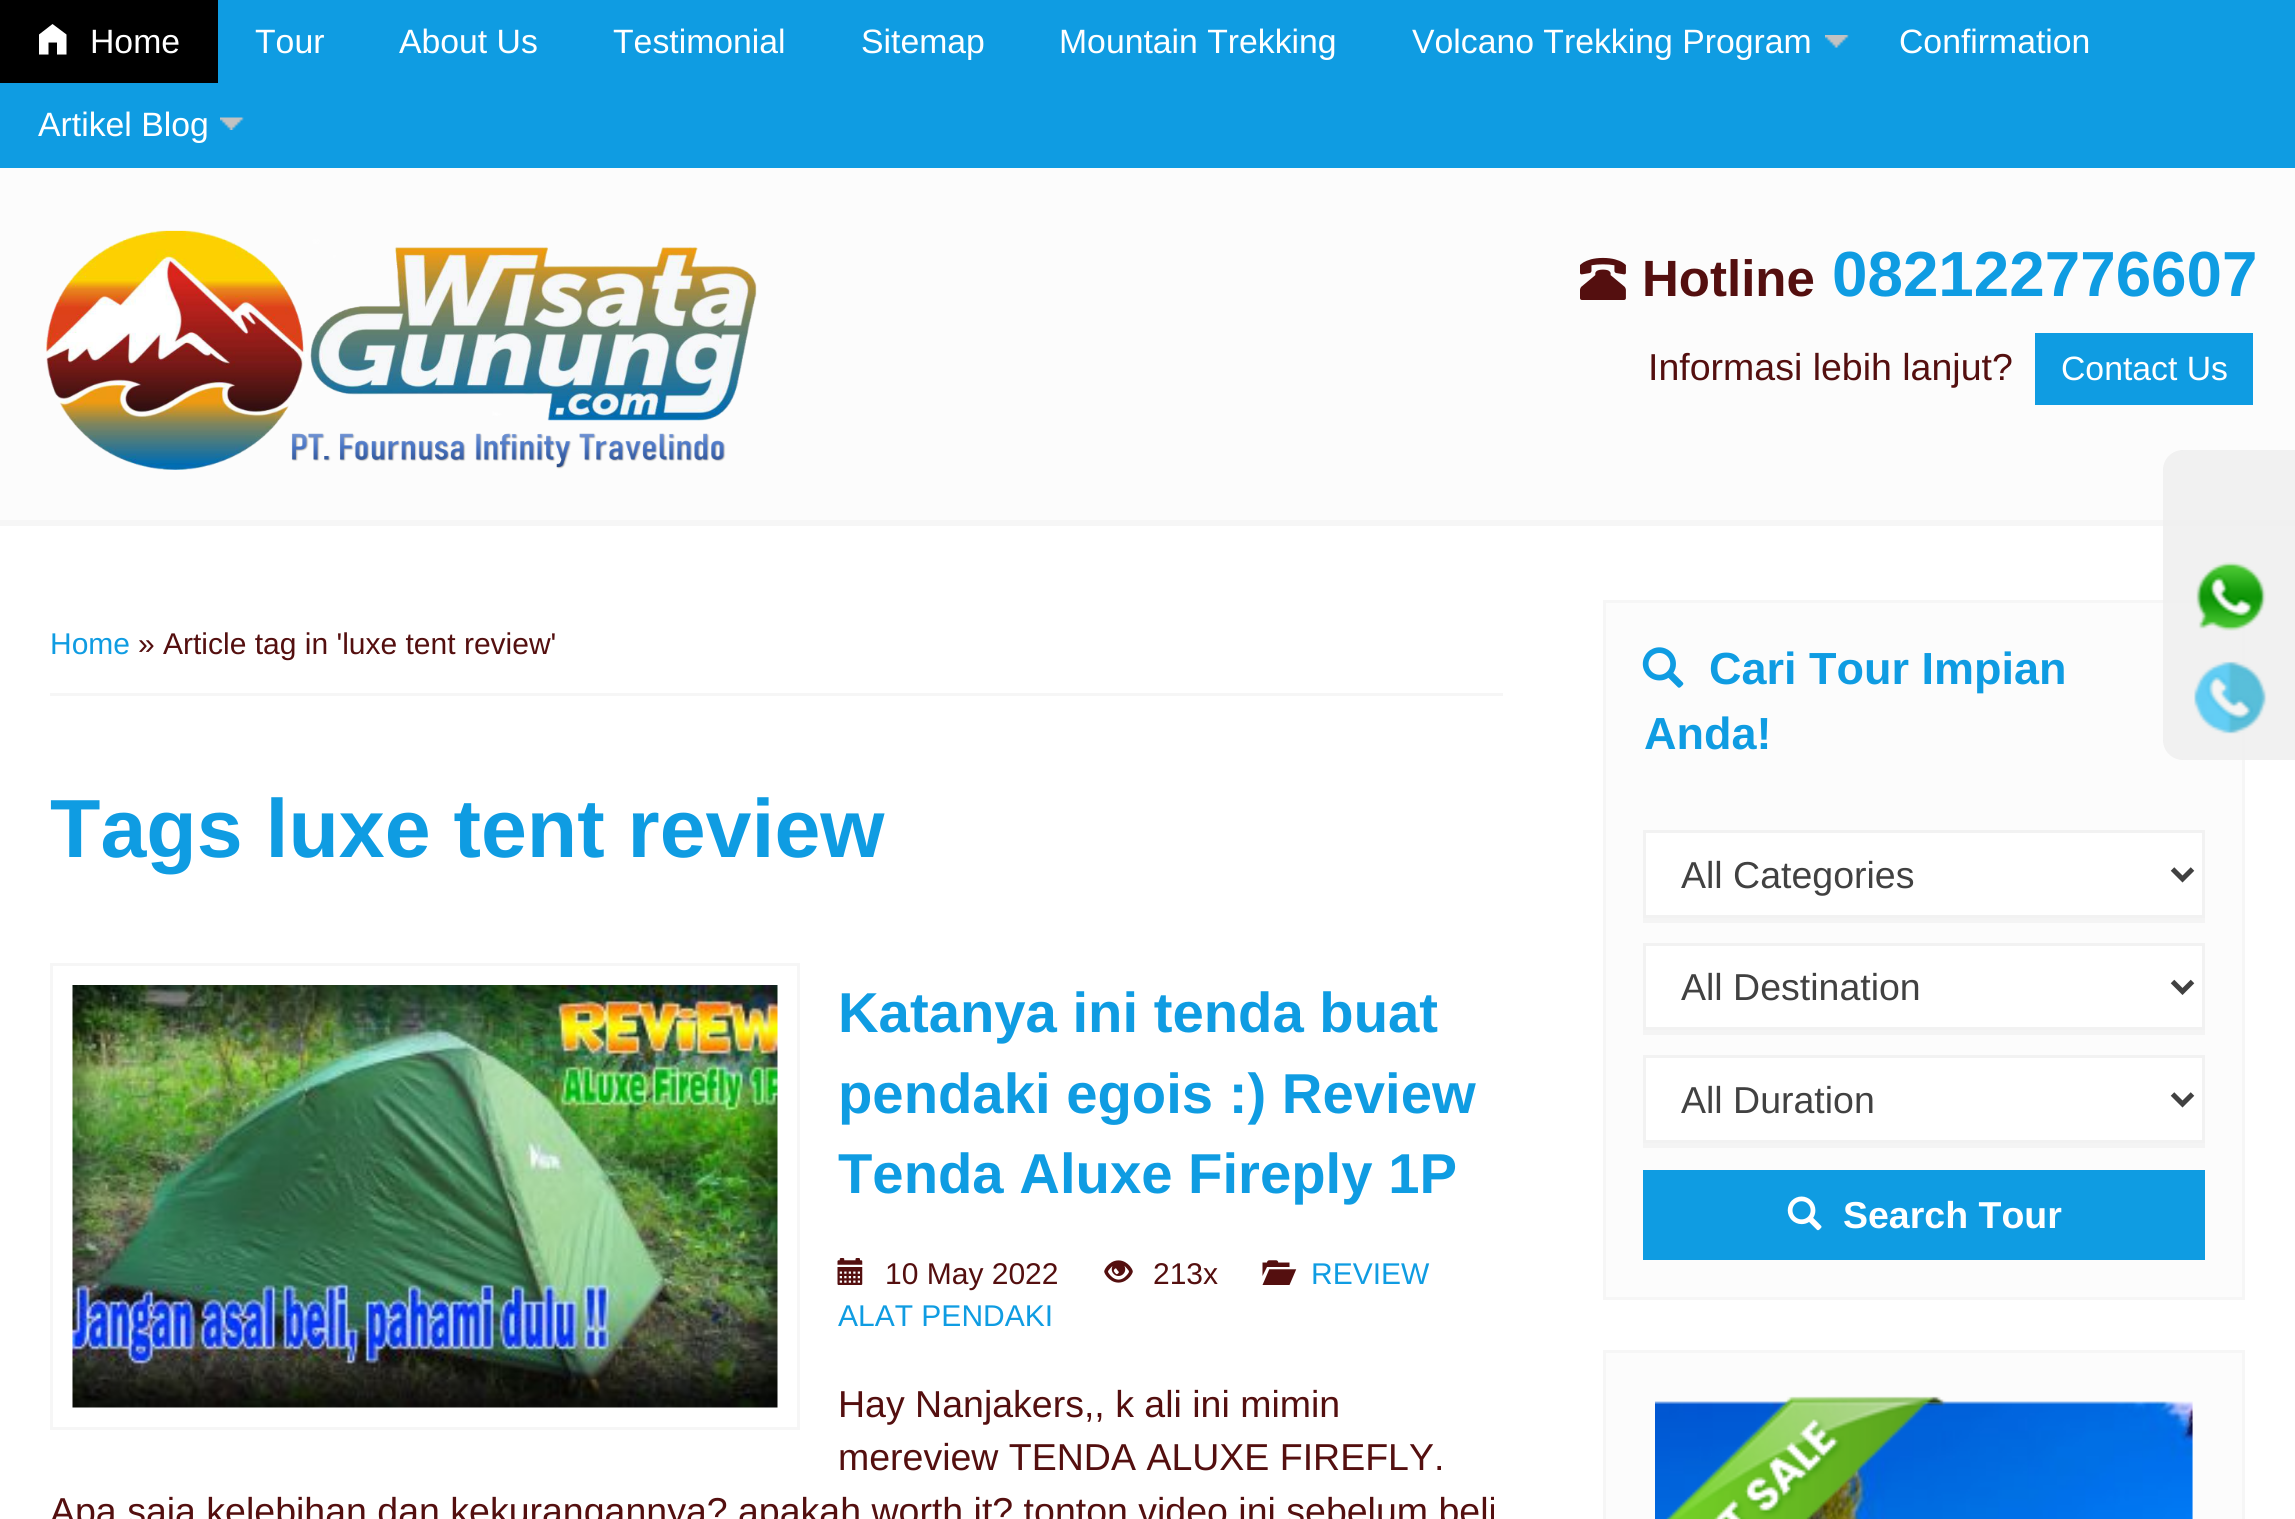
import math
import cairo


def paste(ctx, path, x, y, w, h):
	ctx.save()
	ctx.set_source_surface(cairo.ImageSurface.create_from_png(path), x, y)
	ctx.rectangle(x, y, w, h)
	ctx.fill()
	ctx.restore()

def draw(ctx):
	ctx.set_source_rgb(1, 1, 1)
	ctx.paint()
	ctx.set_source_rgb(0.059, 0.612, 0.886)
	ctx.rectangle(0, 0, 2295, 168)
	ctx.fill()
	ctx.set_source_rgb(0, 0, 0)
	ctx.rectangle(0, 0, 218, 83)
	ctx.fill()
	ctx.set_source_rgb(1, 1, 1)
	ctx.new_path()
	ctx.move_to(52.5, 24)
	ctx.line_to(39, 34.5)
	ctx.line_to(39, 54.5)
	ctx.line_to(48.5, 54.5)
	ctx.line_to(48.5, 42.5)
	ctx.line_to(57, 42.5)
	ctx.line_to(57, 54.5)
	ctx.line_to(66.5, 54.5)
	ctx.line_to(66.5, 34.5)
	ctx.close_path()
	ctx.fill()
	ctx.select_font_face('Liberation Sans')
	ctx.set_font_size(33.75)
	for x, y, s in [
		(90, 53, 'Home'),
		(255, 53, 'Tour'),
		(399, 53, 'About Us'),
		(613, 53, 'Testimonial'),
		(861, 53, 'Sitemap'),
		(1059, 53, 'Mountain Trekking'),
	]:
		ctx.move_to(x, y)
		ctx.show_text(s)
	paste(ctx, 'media/1.png', 1825, 35, 24, 13)
	ctx.move_to(1412, 53)
	ctx.show_text('Volcano Trekking Program')
	ctx.move_to(1899, 53)
	ctx.show_text('Confirmation')
	paste(ctx, 'media/2.png', 220, 117, 24, 13)
	ctx.move_to(38, 136)
	ctx.show_text('Artikel Blog')
	ctx.set_source_rgb(0.988, 0.988, 0.988)
	ctx.rectangle(0, 168, 2295, 352)
	ctx.fill()
	ctx.set_source_rgb(0.961, 0.961, 0.961)
	ctx.rectangle(0, 520, 2295, 6)
	ctx.fill()
	paste(ctx, 'media/3.png', 46, 230, 711, 240)
	paste(ctx, 'media/4.png', 1580, 257, 46, 43)
	ctx.select_font_face('Liberation Sans', cairo.FONT_SLANT_NORMAL, cairo.FONT_WEIGHT_BOLD)
	ctx.set_font_size(51)
	ctx.set_source_rgb(0.329, 0.059, 0.059)
	ctx.move_to(1642, 296)
	ctx.show_text('Hotline')
	ctx.set_font_size(63.75)
	ctx.set_source_rgb(0.059, 0.612, 0.886)
	ctx.move_to(1832, 296)
	ctx.show_text('082122776607')
	ctx.select_font_face('Liberation Sans')
	ctx.set_font_size(37.5)
	ctx.set_source_rgb(0.329, 0.059, 0.059)
	ctx.move_to(1648, 380)
	ctx.show_text('Informasi lebih lanjut?')
	ctx.set_source_rgb(0.059, 0.612, 0.886)
	ctx.rectangle(2035, 333, 218, 72)
	ctx.fill()
	ctx.set_font_size(33.75)
	ctx.set_source_rgb(1, 1, 1)
	ctx.move_to(2061, 380)
	ctx.show_text('Contact Us')
	ctx.set_source_rgb(0.961, 0.961, 0.961)
	ctx.rectangle(50, 693, 1453, 3)
	ctx.fill()
	ctx.set_font_size(30)
	ctx.set_source_rgb(0.059, 0.612, 0.886)
	ctx.move_to(50, 654)
	ctx.show_text('Home')
	ctx.set_source_rgb(0.329, 0.059, 0.059)
	ctx.move_to(138, 654)
	ctx.show_text('» Article tag in \'luxe tent review\'')
	ctx.select_font_face('Liberation Sans', cairo.FONT_SLANT_NORMAL, cairo.FONT_WEIGHT_BOLD)
	ctx.set_font_size(82.5)
	ctx.set_source_rgb(0.059, 0.612, 0.886)
	ctx.move_to(50, 857)
	ctx.show_text('Tags luxe tent review')
	ctx.rectangle(51.5, 964.5, 747, 464)
	ctx.set_source_rgb(0.961, 0.961, 0.961)
	ctx.set_line_width(3)
	ctx.stroke()
	paste(ctx, 'media/5.png', 72, 985, 706, 423)
	ctx.set_font_size(56.25)
	ctx.set_source_rgb(0.059, 0.612, 0.886)
	for x, y, s in [
		(838, 1032, 'Katanya ini tenda buat'),
		(838, 1113, 'pendaki egois :) Review'),
		(838, 1193, 'Tenda Aluxe Fireply 1P'),
	]:
		ctx.move_to(x, y)
		ctx.show_text(s)
	paste(ctx, 'media/6.png', 837, 1258, 26, 27)
	ctx.select_font_face('Liberation Sans')
	ctx.set_font_size(30)
	ctx.set_source_rgb(0.329, 0.059, 0.059)
	ctx.move_to(885, 1284)
	ctx.show_text('10 May 2022')
	paste(ctx, 'media/7.png', 1104, 1260, 29, 23)
	ctx.move_to(1153, 1284)
	ctx.show_text('213x')
	paste(ctx, 'media/8.png', 1262, 1260, 35, 25)
	ctx.set_source_rgb(0.059, 0.612, 0.886)
	ctx.move_to(1311, 1284)
	ctx.show_text('REVIEW')
	ctx.move_to(838, 1326)
	ctx.show_text('ALAT PENDAKI')
	ctx.set_font_size(37.5)
	ctx.set_source_rgb(0.329, 0.059, 0.059)
	for x, y, s in [
		(838, 1417, 'Hay Nanjakers,, k ali ini mimin'),
		(838, 1470, 'mereview TENDA ALUXE FIREFLY.'),
		(50, 1524, 'Apa saja kelebihan dan kekurangannya? apakah worth it? tonton video ini sebelum beli'),
	]:
		ctx.move_to(x, y)
		ctx.show_text(s)
	ctx.set_source_rgb(0.988, 0.988, 0.988)
	ctx.rectangle(1604.5, 601.5, 639, 697)
	ctx.fill_preserve()
	ctx.set_source_rgb(0.961, 0.961, 0.961)
	ctx.stroke()
	paste(ctx, 'media/9.png', 1642, 647, 42, 41)
	ctx.select_font_face('Liberation Sans', cairo.FONT_SLANT_NORMAL, cairo.FONT_WEIGHT_BOLD)
	ctx.set_font_size(45)
	ctx.set_source_rgb(0.059, 0.612, 0.886)
	ctx.move_to(1709, 684)
	ctx.show_text('Cari Tour Impian')
	ctx.move_to(1644, 749)
	ctx.show_text('Anda!')
	ctx.set_source_rgb(0.957, 0.957, 0.957)
	ctx.rectangle(1643, 918, 562, 5)
	ctx.fill()
	ctx.set_source_rgb(1, 1, 1)
	ctx.rectangle(1644.5, 831.5, 559, 85)
	ctx.fill_preserve()
	ctx.set_source_rgb(0.949, 0.949, 0.949)
	ctx.stroke()
	ctx.new_path()
	ctx.move_to(2172.5, 869)
	ctx.line_to(2182.5, 879)
	ctx.line_to(2192.5, 869)
	ctx.set_source_rgb(0.255, 0.255, 0.255)
	ctx.set_line_width(5)
	ctx.stroke()
	ctx.select_font_face('Liberation Sans')
	ctx.set_font_size(37.5)
	ctx.move_to(1681, 888)
	ctx.show_text('All Categories')
	ctx.set_source_rgb(0.957, 0.957, 0.957)
	ctx.rectangle(1643, 1030, 562, 5)
	ctx.fill()
	ctx.set_source_rgb(1, 1, 1)
	ctx.rectangle(1644.5, 944.5, 559, 84)
	ctx.fill_preserve()
	ctx.set_source_rgb(0.949, 0.949, 0.949)
	ctx.set_line_width(3)
	ctx.stroke()
	ctx.new_path()
	ctx.move_to(2172.5, 981.5)
	ctx.line_to(2182.5, 991.5)
	ctx.line_to(2192.5, 981.5)
	ctx.set_source_rgb(0.255, 0.255, 0.255)
	ctx.set_line_width(5)
	ctx.stroke()
	ctx.move_to(1681, 1000)
	ctx.show_text('All Destination')
	ctx.set_source_rgb(0.957, 0.957, 0.957)
	ctx.rectangle(1643, 1143, 562, 5)
	ctx.fill()
	ctx.set_source_rgb(1, 1, 1)
	ctx.rectangle(1644.5, 1056.5, 559, 85)
	ctx.fill_preserve()
	ctx.set_source_rgb(0.949, 0.949, 0.949)
	ctx.set_line_width(3)
	ctx.stroke()
	ctx.new_path()
	ctx.move_to(2172.5, 1094)
	ctx.line_to(2182.5, 1104)
	ctx.line_to(2192.5, 1094)
	ctx.set_source_rgb(0.255, 0.255, 0.255)
	ctx.set_line_width(5)
	ctx.stroke()
	ctx.move_to(1681, 1113)
	ctx.show_text('All Duration')
	ctx.set_source_rgb(0.059, 0.612, 0.886)
	ctx.rectangle(1643, 1170, 562, 90)
	ctx.fill()
	paste(ctx, 'media/10.png', 1787, 1196, 35, 35)
	ctx.select_font_face('Liberation Sans', cairo.FONT_SLANT_NORMAL, cairo.FONT_WEIGHT_BOLD)
	ctx.set_source_rgb(1, 1, 1)
	ctx.move_to(1843, 1228)
	ctx.show_text('Search Tour')
	ctx.set_source_rgb(0.988, 0.988, 0.988)
	ctx.rectangle(1604.5, 1351.5, 639, 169)
	ctx.fill_preserve()
	ctx.set_source_rgb(0.961, 0.961, 0.961)
	ctx.set_line_width(3)
	ctx.stroke()
	paste(ctx, 'media/12.png', 1655, 1401, 538, 118)
	paste(ctx, 'media/11.png', 1666, 1396, 280, 123)
	ctx.set_source_rgba(0.933, 0.933, 0.933, 0.85)
	ctx.new_path()
	ctx.move_to(2183, 450)
	ctx.line_to(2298, 450)
	ctx.line_to(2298, 760)
	ctx.line_to(2183, 760)
	ctx.curve_to(2172, 760, 2163, 751, 2163, 740)
	ctx.line_to(2163, 470)
	ctx.curve_to(2163, 459, 2172, 450, 2183, 450)
	ctx.close_path()
	ctx.fill()
	paste(ctx, 'media/13.png', 2196, 562, 70, 69)
	paste(ctx, 'media/14.png', 2194, 661, 73, 73)


surface = cairo.ImageSurface(cairo.FORMAT_RGB24, 2295, 1519)
ctx = cairo.Context(surface)
options = cairo.FontOptions()
options.set_hint_metrics(cairo.HINT_METRICS_OFF)
options.set_hint_style(cairo.HINT_STYLE_NONE)
ctx.set_font_options(options)
ctx.set_miter_limit(4)
draw(ctx)
surface.write_to_png('image.png')
